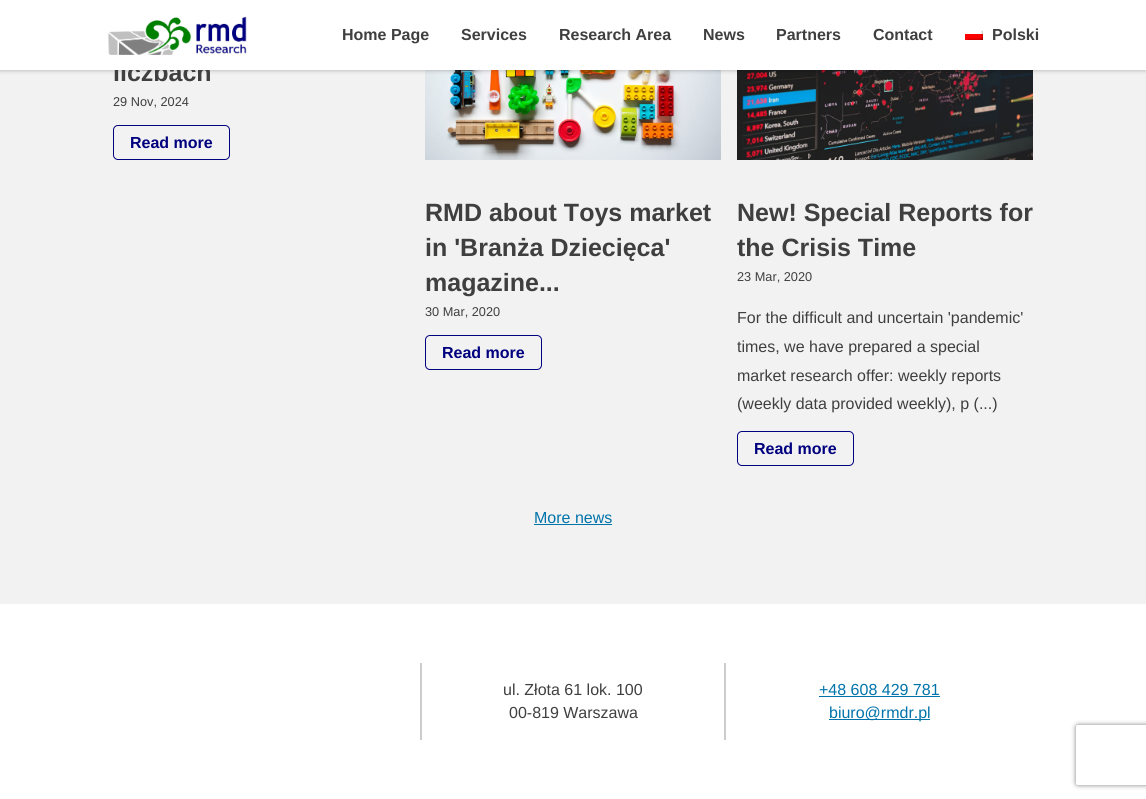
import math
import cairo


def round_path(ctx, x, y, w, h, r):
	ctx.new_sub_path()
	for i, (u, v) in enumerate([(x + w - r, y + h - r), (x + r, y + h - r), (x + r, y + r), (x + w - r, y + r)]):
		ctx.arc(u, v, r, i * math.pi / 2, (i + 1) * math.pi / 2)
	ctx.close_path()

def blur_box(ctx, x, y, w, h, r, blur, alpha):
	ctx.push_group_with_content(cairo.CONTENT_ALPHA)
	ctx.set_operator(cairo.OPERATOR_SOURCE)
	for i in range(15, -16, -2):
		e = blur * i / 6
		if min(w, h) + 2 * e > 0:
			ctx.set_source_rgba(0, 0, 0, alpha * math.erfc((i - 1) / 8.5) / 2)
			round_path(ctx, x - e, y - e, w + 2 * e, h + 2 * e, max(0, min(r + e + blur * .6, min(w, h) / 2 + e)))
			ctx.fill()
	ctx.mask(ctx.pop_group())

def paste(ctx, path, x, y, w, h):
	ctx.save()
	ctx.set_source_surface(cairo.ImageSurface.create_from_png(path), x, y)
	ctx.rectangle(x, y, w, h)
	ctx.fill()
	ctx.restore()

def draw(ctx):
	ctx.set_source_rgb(1, 1, 1)
	ctx.paint()
	ctx.set_source_rgb(0.949, 0.949, 0.949)
	ctx.rectangle(0, 70, 1146, 534)
	ctx.fill()
	paste(ctx, 'media/3.png', 425, 70, 296, 90)
	paste(ctx, 'media/4.png', 737, 70, 296, 90)
	ctx.set_source_rgb(0, 0, 0)
	blur_box(ctx, 0, 0, 1146, 70, 0, 2.5, 0.3)
	ctx.select_font_face('Liberation Sans', cairo.FONT_SLANT_NORMAL, cairo.FONT_WEIGHT_BOLD)
	ctx.set_font_size(25)
	ctx.set_source_rgb(0.247, 0.247, 0.247)
	ctx.move_to(113, 81)
	ctx.show_text('liczbach')
	ctx.set_source_rgb(1, 1, 1)
	ctx.rectangle(0, 0, 1146, 70)
	ctx.fill()
	paste(ctx, 'media/1.png', 108, 16, 139, 39)
	ctx.set_font_size(16)
	ctx.set_source_rgb(0.247, 0.247, 0.247)
	for x, y, s in [
		(342, 40, 'Home Page'),
		(461, 40, 'Services'),
		(559, 40, 'Research Area'),
		(703, 40, 'News'),
		(776, 40, 'Partners'),
		(873, 40, 'Contact'),
	]:
		ctx.move_to(x, y)
		ctx.show_text(s)
	paste(ctx, 'media/2.png', 965, 30, 18, 10)
	ctx.move_to(992, 40)
	ctx.show_text('Polski')
	ctx.select_font_face('Liberation Sans')
	ctx.set_font_size(12.75)
	ctx.move_to(113, 106)
	ctx.show_text('29 Nov, 2024')
	round_path(ctx, 113.5, 125.5, 116, 34, 4.5)
	ctx.set_source_rgb(0, 0, 0.498)
	ctx.set_line_width(1)
	ctx.stroke()
	ctx.select_font_face('Liberation Sans', cairo.FONT_SLANT_NORMAL, cairo.FONT_WEIGHT_BOLD)
	ctx.set_font_size(16)
	ctx.move_to(130, 148)
	ctx.show_text('Read more')
	ctx.set_font_size(25)
	ctx.set_source_rgb(0.247, 0.247, 0.247)
	for x, y, s in [
		(425, 221, 'RMD about Toys market'),
		(425, 256, 'in \'Branża Dziecięca\''),
		(425, 291, 'magazine...'),
	]:
		ctx.move_to(x, y)
		ctx.show_text(s)
	ctx.select_font_face('Liberation Sans')
	ctx.set_font_size(12.75)
	ctx.move_to(425, 316)
	ctx.show_text('30 Mar, 2020')
	round_path(ctx, 425.5, 335.5, 116, 34, 4.5)
	ctx.set_source_rgb(0, 0, 0.498)
	ctx.stroke()
	ctx.select_font_face('Liberation Sans', cairo.FONT_SLANT_NORMAL, cairo.FONT_WEIGHT_BOLD)
	ctx.set_font_size(16)
	ctx.move_to(442, 358)
	ctx.show_text('Read more')
	ctx.set_font_size(25)
	ctx.set_source_rgb(0.247, 0.247, 0.247)
	ctx.move_to(737, 221)
	ctx.show_text('New! Special Reports for')
	ctx.move_to(737, 256)
	ctx.show_text('the Crisis Time')
	ctx.select_font_face('Liberation Sans')
	ctx.set_font_size(12.75)
	ctx.move_to(737, 281)
	ctx.show_text('23 Mar, 2020')
	ctx.set_font_size(16)
	for x, y, s in [
		(737, 323, 'For the difficult and uncertain \'pandemic\''),
		(737, 352, 'times, we have prepared a special'),
		(737, 381, 'market research offer: weekly reports'),
		(737, 409, '(weekly data provided weekly), p (...)'),
	]:
		ctx.move_to(x, y)
		ctx.show_text(s)
	round_path(ctx, 737.5, 431.5, 116, 34, 4.5)
	ctx.set_source_rgb(0, 0, 0.498)
	ctx.stroke()
	ctx.select_font_face('Liberation Sans', cairo.FONT_SLANT_NORMAL, cairo.FONT_WEIGHT_BOLD)
	ctx.move_to(754, 454)
	ctx.show_text('Read more')
	ctx.select_font_face('Liberation Sans')
	ctx.set_source_rgb(0, 0.451, 0.667)
	ctx.move_to(534, 523)
	ctx.show_text('More news')
	ctx.rectangle(534, 524, 78, 1)
	ctx.fill()
	ctx.set_source_rgb(0.8, 0.8, 0.8)
	ctx.rectangle(724, 663, 2, 77)
	ctx.rectangle(420, 663, 2, 77)
	ctx.fill()
	ctx.set_source_rgb(0.247, 0.247, 0.247)
	ctx.move_to(503, 695)
	ctx.show_text('ul. Złota 61 lok. 100')
	ctx.move_to(509, 718)
	ctx.show_text('00-819 Warszawa')
	ctx.set_source_rgb(0, 0.451, 0.667)
	ctx.move_to(819, 695)
	ctx.show_text('+48 608 429 781')
	ctx.rectangle(819, 696, 121, 1)
	ctx.fill()
	ctx.rectangle(829, 719, 101, 1)
	ctx.fill()
	ctx.move_to(829, 718)
	ctx.show_text('biuro@rmdr.pl')
	ctx.save()
	ctx.set_fill_rule(cairo.FILL_RULE_EVEN_ODD)
	ctx.new_path()
	ctx.move_to(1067, 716)
	ctx.line_to(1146, 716)
	ctx.line_to(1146, 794)
	ctx.line_to(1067, 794)
	ctx.close_path()
	ctx.move_to(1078, 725)
	ctx.line_to(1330, 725)
	ctx.curve_to(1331, 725, 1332, 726, 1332, 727)
	ctx.line_to(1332, 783)
	ctx.curve_to(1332, 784, 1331, 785, 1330, 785)
	ctx.line_to(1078, 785)
	ctx.curve_to(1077, 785, 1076, 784, 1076, 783)
	ctx.line_to(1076, 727)
	ctx.curve_to(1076, 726, 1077, 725, 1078, 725)
	ctx.close_path()
	ctx.clip()
	ctx.set_source_rgb(0.502, 0.502, 0.502)
	blur_box(ctx, 1076, 725, 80, 60, 2, 2.5, 1)
	ctx.restore()


surface = cairo.ImageSurface(cairo.FORMAT_RGB24, 1146, 799)
ctx = cairo.Context(surface)
options = cairo.FontOptions()
options.set_hint_metrics(cairo.HINT_METRICS_OFF)
options.set_hint_style(cairo.HINT_STYLE_NONE)
ctx.set_font_options(options)
ctx.set_miter_limit(4)
draw(ctx)
surface.write_to_png('image.png')
